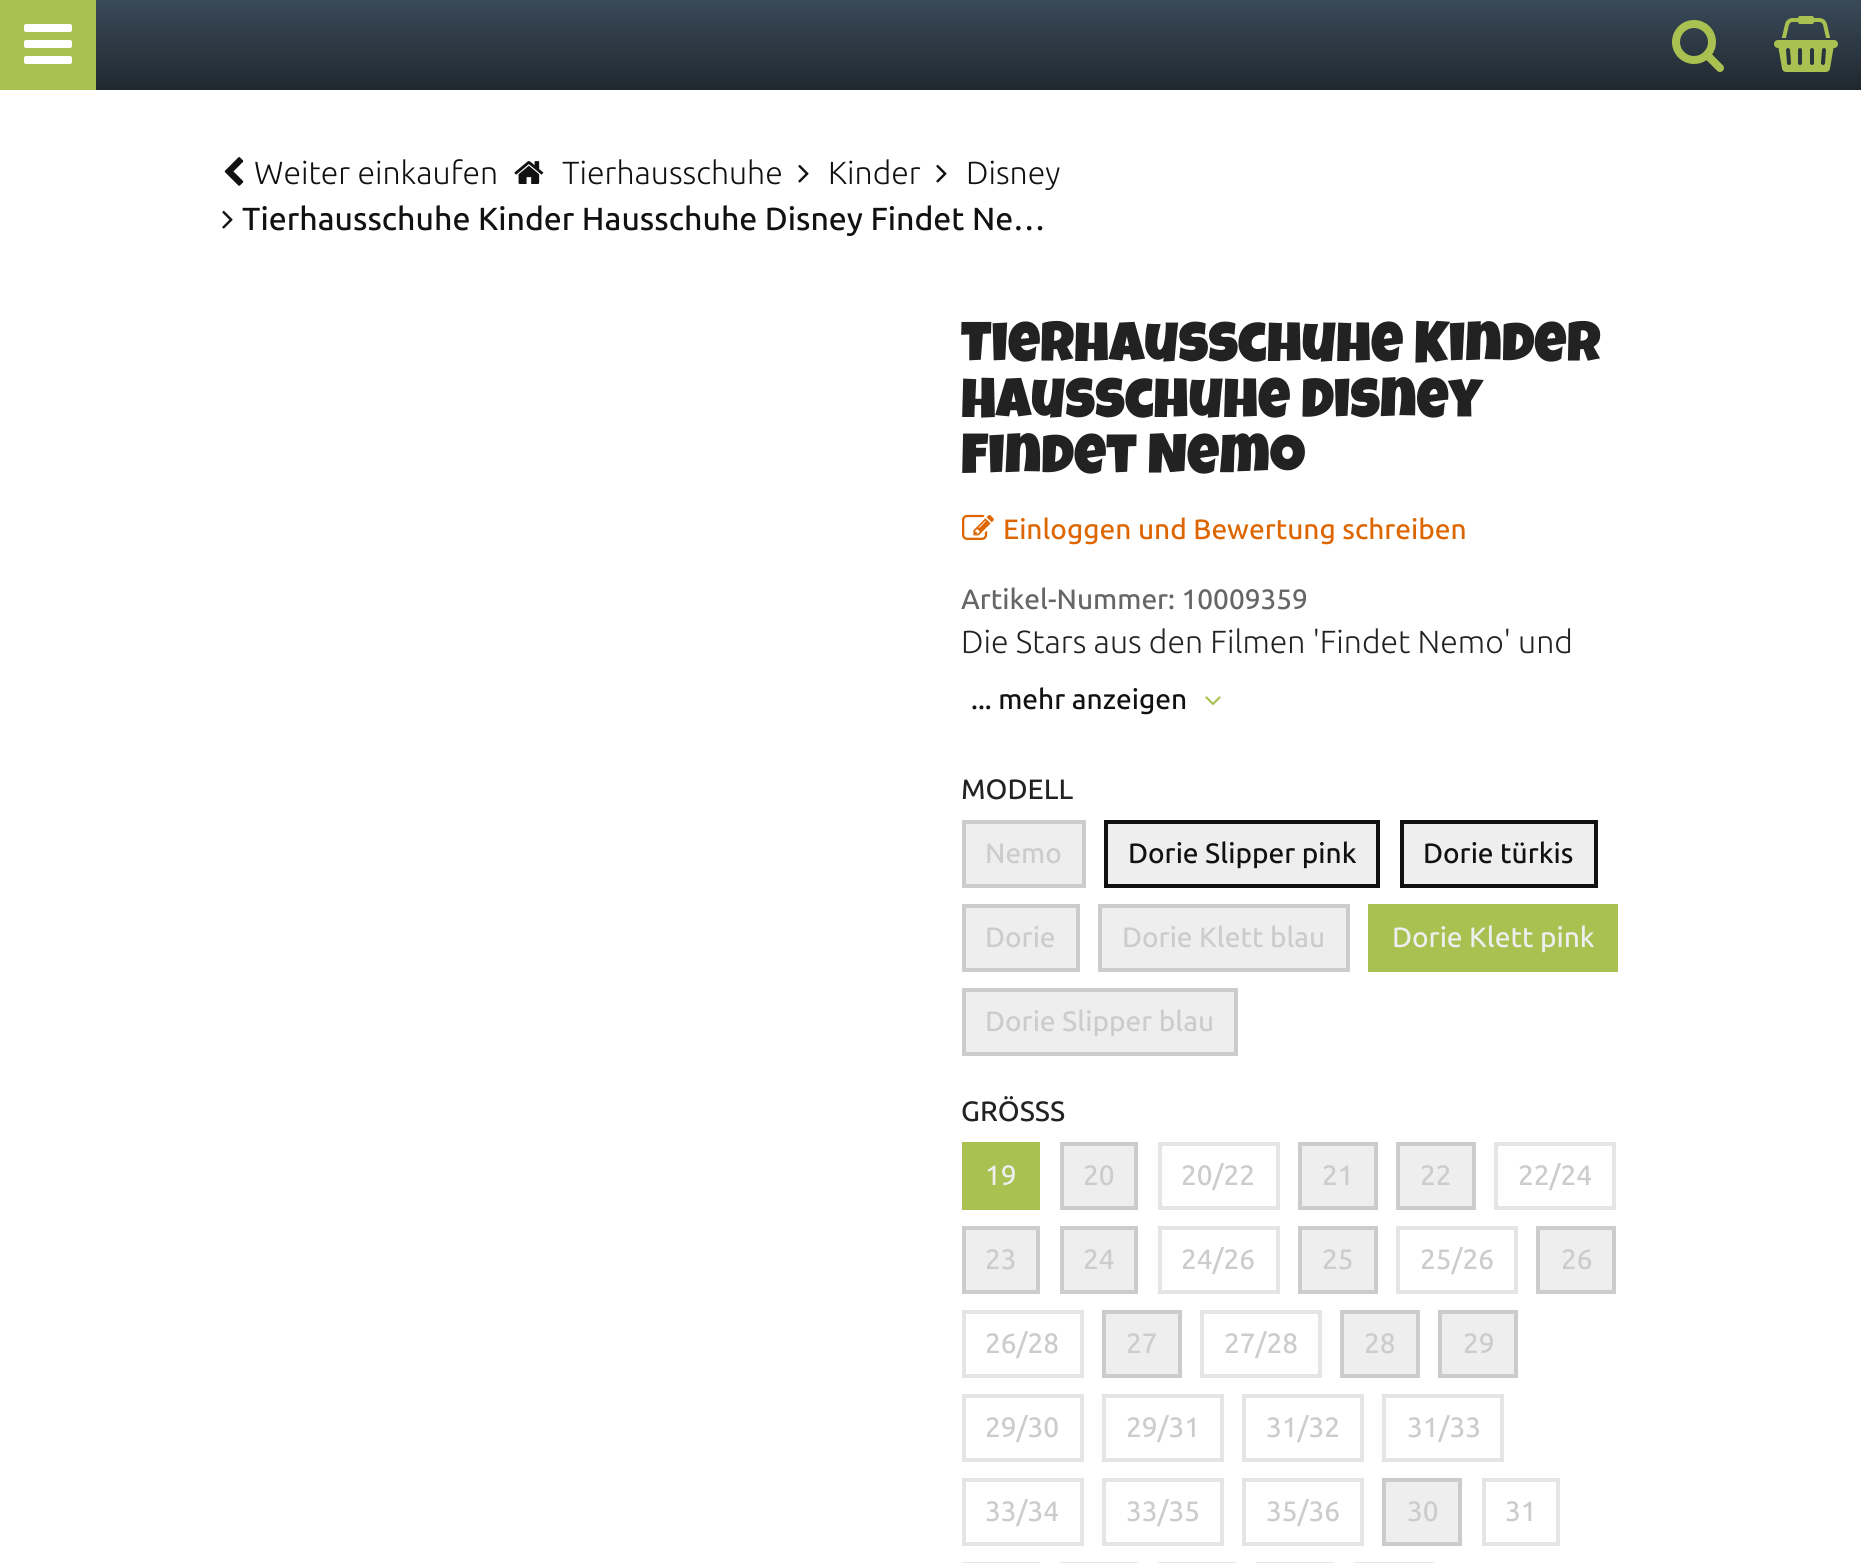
import math
import cairo


def paste(ctx, path, x, y, w, h):
	ctx.save()
	ctx.set_source_surface(cairo.ImageSurface.create_from_png(path), x, y)
	ctx.rectangle(x, y, w, h)
	ctx.fill()
	ctx.restore()

def draw(ctx):
	ctx.set_source_rgb(1, 1, 1)
	ctx.paint()
	gradient = cairo.LinearGradient(931, 0, 931, 90)
	gradient.add_color_stop_rgba(0, 0.227, 0.29, 0.349, 1)
	gradient.add_color_stop_rgba(1, 0.122, 0.157, 0.184, 1)
	ctx.set_source(gradient)
	ctx.rectangle(96, 0, 1765, 90)
	ctx.fill()
	ctx.set_source_rgb(0.663, 0.757, 0.318)
	ctx.rectangle(0, 0, 96, 90)
	ctx.fill()
	paste(ctx, 'media/1.png', 24, 24, 48, 40)
	paste(ctx, 'media/2.png', 1672, 20, 52, 52)
	paste(ctx, 'media/3.png', 1774, 16, 64, 56)
	paste(ctx, 'media/4.png', 224, 157, 20, 29)
	ctx.select_font_face('Ubuntu Light')
	ctx.set_font_size(32)
	ctx.set_source_rgb(0.067, 0.067, 0.067)
	ctx.move_to(254, 184)
	ctx.show_text('Weiter einkaufen')
	paste(ctx, 'media/5.png', 514, 161, 30, 23)
	ctx.move_to(562, 184)
	ctx.show_text('Tierhausschuhe')
	paste(ctx, 'media/6.png', 798, 164, 11, 19)
	ctx.move_to(828, 184)
	ctx.show_text('Kinder')
	paste(ctx, 'media/6.png', 936, 164, 11, 19)
	ctx.move_to(966, 184)
	ctx.show_text('Disney')
	paste(ctx, 'media/6.png', 222, 210, 11, 19)
	ctx.select_font_face('Ubuntu Medium')
	ctx.move_to(242, 230)
	ctx.show_text('Tierhausschuhe Kinder Hausschuhe Disney Findet Ne…')
	ctx.select_font_face('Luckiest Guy')
	ctx.set_font_size(56)
	ctx.set_source_rgb(0.133, 0.133, 0.133)
	for x, y, s in [
		(961, 361, 'Tierhausschuhe Kinder'),
		(961, 417, 'Hausschuhe Disney'),
		(961, 473, 'Findet Nemo'),
	]:
		ctx.move_to(x, y)
		ctx.show_text(s)
	paste(ctx, 'media/7.png', 962, 514, 32, 26)
	ctx.select_font_face('Ubuntu Medium')
	ctx.set_font_size(28)
	ctx.set_source_rgb(0.867, 0.4, 0)
	ctx.move_to(1003, 539)
	ctx.show_text('Einloggen und Bewertung schreiben')
	ctx.set_source_rgb(0.4, 0.4, 0.4)
	ctx.move_to(961, 609)
	ctx.show_text('Artikel-Nummer: 10009359')
	ctx.select_font_face('Ubuntu Light')
	ctx.set_font_size(32)
	ctx.set_source_rgb(0.133, 0.133, 0.133)
	ctx.move_to(961, 653)
	ctx.show_text('Die Stars aus den Filmen \'Findet Nemo\' und')
	ctx.select_font_face('Ubuntu Medium')
	ctx.set_font_size(28)
	ctx.set_source_rgb(0.067, 0.067, 0.067)
	ctx.move_to(971, 709)
	ctx.show_text('... mehr anzeigen')
	paste(ctx, 'media/8.png', 1205, 696, 16, 10)
	ctx.set_source_rgb(0.133, 0.133, 0.133)
	ctx.move_to(961, 799)
	ctx.show_text('MODELL')
	ctx.set_source_rgb(0.933, 0.933, 0.933)
	ctx.rectangle(964, 822, 120, 64)
	ctx.fill_preserve()
	ctx.set_source_rgb(0.8, 0.8, 0.8)
	ctx.set_line_width(4)
	ctx.stroke()
	ctx.move_to(985, 863)
	ctx.show_text('Nemo')
	ctx.set_source_rgb(0.933, 0.933, 0.933)
	ctx.rectangle(1106, 822, 272, 64)
	ctx.fill_preserve()
	ctx.set_source_rgb(0.067, 0.067, 0.067)
	ctx.stroke()
	ctx.move_to(1128, 863)
	ctx.show_text('Dorie Slipper pink')
	ctx.set_source_rgb(0.933, 0.933, 0.933)
	ctx.rectangle(1402, 822, 194, 64)
	ctx.fill_preserve()
	ctx.set_source_rgb(0.067, 0.067, 0.067)
	ctx.stroke()
	ctx.move_to(1423, 863)
	ctx.show_text('Dorie türkis')
	ctx.set_source_rgb(0.933, 0.933, 0.933)
	ctx.rectangle(964, 906, 114, 64)
	ctx.fill_preserve()
	ctx.set_source_rgb(0.8, 0.8, 0.8)
	ctx.stroke()
	ctx.move_to(985, 947)
	ctx.show_text('Dorie')
	ctx.set_source_rgb(0.933, 0.933, 0.933)
	ctx.rectangle(1100, 906, 248, 64)
	ctx.fill_preserve()
	ctx.set_source_rgb(0.8, 0.8, 0.8)
	ctx.stroke()
	ctx.move_to(1122, 947)
	ctx.show_text('Dorie Klett blau')
	ctx.set_source_rgb(0.663, 0.757, 0.318)
	ctx.rectangle(1368, 904, 250, 68)
	ctx.fill()
	ctx.set_source_rgb(0.933, 0.933, 0.933)
	ctx.move_to(1392, 947)
	ctx.show_text('Dorie Klett pink')
	ctx.rectangle(964, 990, 272, 64)
	ctx.fill_preserve()
	ctx.set_source_rgb(0.8, 0.8, 0.8)
	ctx.stroke()
	ctx.move_to(985, 1031)
	ctx.show_text('Dorie Slipper blau')
	ctx.set_source_rgb(0.133, 0.133, 0.133)
	ctx.move_to(961, 1121)
	ctx.show_text('GRÖSSS')
	ctx.set_source_rgb(0.663, 0.757, 0.318)
	ctx.rectangle(962, 1142, 78, 68)
	ctx.fill()
	ctx.set_source_rgb(0.933, 0.933, 0.933)
	ctx.move_to(985, 1185)
	ctx.show_text('19')
	ctx.rectangle(1062, 1144, 74, 64)
	ctx.fill_preserve()
	ctx.set_source_rgb(0.8, 0.8, 0.8)
	ctx.stroke()
	ctx.move_to(1083, 1185)
	ctx.show_text('20')
	ctx.rectangle(1160, 1144, 118, 64)
	ctx.set_source_rgb(0.898, 0.898, 0.898)
	ctx.stroke()
	ctx.set_source_rgb(0.8, 0.8, 0.8)
	ctx.move_to(1181, 1185)
	ctx.show_text('20/22')
	ctx.set_source_rgb(0.933, 0.933, 0.933)
	ctx.rectangle(1300, 1144, 76, 64)
	ctx.fill_preserve()
	ctx.set_source_rgb(0.8, 0.8, 0.8)
	ctx.stroke()
	ctx.move_to(1322, 1185)
	ctx.show_text('21')
	ctx.set_source_rgb(0.933, 0.933, 0.933)
	ctx.rectangle(1398, 1144, 76, 64)
	ctx.fill_preserve()
	ctx.set_source_rgb(0.8, 0.8, 0.8)
	ctx.stroke()
	ctx.move_to(1420, 1185)
	ctx.show_text('22')
	ctx.rectangle(1496, 1144, 118, 64)
	ctx.set_source_rgb(0.898, 0.898, 0.898)
	ctx.stroke()
	ctx.set_source_rgb(0.8, 0.8, 0.8)
	ctx.move_to(1518, 1185)
	ctx.show_text('22/24')
	ctx.set_source_rgb(0.933, 0.933, 0.933)
	ctx.rectangle(964, 1228, 74, 64)
	ctx.fill_preserve()
	ctx.set_source_rgb(0.8, 0.8, 0.8)
	ctx.stroke()
	ctx.move_to(985, 1269)
	ctx.show_text('23')
	ctx.set_source_rgb(0.933, 0.933, 0.933)
	ctx.rectangle(1062, 1228, 74, 64)
	ctx.fill_preserve()
	ctx.set_source_rgb(0.8, 0.8, 0.8)
	ctx.stroke()
	ctx.move_to(1083, 1269)
	ctx.show_text('24')
	ctx.rectangle(1160, 1228, 118, 64)
	ctx.set_source_rgb(0.898, 0.898, 0.898)
	ctx.stroke()
	ctx.set_source_rgb(0.8, 0.8, 0.8)
	ctx.move_to(1181, 1269)
	ctx.show_text('24/26')
	ctx.set_source_rgb(0.933, 0.933, 0.933)
	ctx.rectangle(1300, 1228, 76, 64)
	ctx.fill_preserve()
	ctx.set_source_rgb(0.8, 0.8, 0.8)
	ctx.stroke()
	ctx.move_to(1322, 1269)
	ctx.show_text('25')
	ctx.rectangle(1398, 1228, 118, 64)
	ctx.set_source_rgb(0.898, 0.898, 0.898)
	ctx.stroke()
	ctx.set_source_rgb(0.8, 0.8, 0.8)
	ctx.move_to(1420, 1269)
	ctx.show_text('25/26')
	ctx.set_source_rgb(0.933, 0.933, 0.933)
	ctx.rectangle(1538, 1228, 76, 64)
	ctx.fill_preserve()
	ctx.set_source_rgb(0.8, 0.8, 0.8)
	ctx.stroke()
	ctx.move_to(1561, 1269)
	ctx.show_text('26')
	ctx.rectangle(964, 1312, 118, 64)
	ctx.set_source_rgb(0.898, 0.898, 0.898)
	ctx.stroke()
	ctx.set_source_rgb(0.8, 0.8, 0.8)
	ctx.move_to(985, 1353)
	ctx.show_text('26/28')
	ctx.set_source_rgb(0.933, 0.933, 0.933)
	ctx.rectangle(1104, 1312, 76, 64)
	ctx.fill_preserve()
	ctx.set_source_rgb(0.8, 0.8, 0.8)
	ctx.stroke()
	ctx.move_to(1126, 1353)
	ctx.show_text('27')
	ctx.rectangle(1202, 1312, 118, 64)
	ctx.set_source_rgb(0.898, 0.898, 0.898)
	ctx.stroke()
	ctx.set_source_rgb(0.8, 0.8, 0.8)
	ctx.move_to(1224, 1353)
	ctx.show_text('27/28')
	ctx.set_source_rgb(0.933, 0.933, 0.933)
	ctx.rectangle(1342, 1312, 76, 64)
	ctx.fill_preserve()
	ctx.set_source_rgb(0.8, 0.8, 0.8)
	ctx.stroke()
	ctx.move_to(1364, 1353)
	ctx.show_text('28')
	ctx.set_source_rgb(0.933, 0.933, 0.933)
	ctx.rectangle(1440, 1312, 76, 64)
	ctx.fill_preserve()
	ctx.set_source_rgb(0.8, 0.8, 0.8)
	ctx.stroke()
	ctx.move_to(1463, 1353)
	ctx.show_text('29')
	ctx.rectangle(964, 1396, 118, 64)
	ctx.set_source_rgb(0.898, 0.898, 0.898)
	ctx.stroke()
	ctx.set_source_rgb(0.8, 0.8, 0.8)
	ctx.move_to(985, 1437)
	ctx.show_text('29/30')
	ctx.rectangle(1104, 1396, 118, 64)
	ctx.set_source_rgb(0.898, 0.898, 0.898)
	ctx.stroke()
	ctx.set_source_rgb(0.8, 0.8, 0.8)
	ctx.move_to(1126, 1437)
	ctx.show_text('29/31')
	ctx.rectangle(1244, 1396, 118, 64)
	ctx.set_source_rgb(0.898, 0.898, 0.898)
	ctx.stroke()
	ctx.set_source_rgb(0.8, 0.8, 0.8)
	ctx.move_to(1266, 1437)
	ctx.show_text('31/32')
	ctx.rectangle(1384, 1396, 118, 64)
	ctx.set_source_rgb(0.898, 0.898, 0.898)
	ctx.stroke()
	ctx.set_source_rgb(0.8, 0.8, 0.8)
	ctx.move_to(1407, 1437)
	ctx.show_text('31/33')
	ctx.rectangle(964, 1480, 118, 64)
	ctx.set_source_rgb(0.898, 0.898, 0.898)
	ctx.stroke()
	ctx.set_source_rgb(0.8, 0.8, 0.8)
	ctx.move_to(985, 1521)
	ctx.show_text('33/34')
	ctx.rectangle(1104, 1480, 118, 64)
	ctx.set_source_rgb(0.898, 0.898, 0.898)
	ctx.stroke()
	ctx.set_source_rgb(0.8, 0.8, 0.8)
	ctx.move_to(1126, 1521)
	ctx.show_text('33/35')
	ctx.rectangle(1244, 1480, 118, 64)
	ctx.set_source_rgb(0.898, 0.898, 0.898)
	ctx.stroke()
	ctx.set_source_rgb(0.8, 0.8, 0.8)
	ctx.move_to(1266, 1521)
	ctx.show_text('35/36')
	ctx.set_source_rgb(0.933, 0.933, 0.933)
	ctx.rectangle(1384, 1480, 76, 64)
	ctx.fill_preserve()
	ctx.set_source_rgb(0.8, 0.8, 0.8)
	ctx.stroke()
	ctx.move_to(1407, 1521)
	ctx.show_text('30')
	ctx.rectangle(1484, 1480, 74, 64)
	ctx.set_source_rgb(0.898, 0.898, 0.898)
	ctx.stroke()
	ctx.set_source_rgb(0.8, 0.8, 0.8)
	ctx.move_to(1505, 1521)
	ctx.show_text('31')
	ctx.rectangle(964, 1564, 74, 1)
	ctx.set_source_rgb(0.898, 0.898, 0.898)
	ctx.stroke()
	ctx.rectangle(1062, 1564, 74, 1)
	ctx.stroke()
	ctx.rectangle(1160, 1564, 74, 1)
	ctx.stroke()
	ctx.rectangle(1258, 1564, 74, 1)
	ctx.stroke()
	ctx.rectangle(1356, 1564, 76, 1)
	ctx.stroke()


surface = cairo.ImageSurface(cairo.FORMAT_RGB24, 1861, 1563)
ctx = cairo.Context(surface)
options = cairo.FontOptions()
options.set_hint_metrics(cairo.HINT_METRICS_OFF)
options.set_hint_style(cairo.HINT_STYLE_NONE)
ctx.set_font_options(options)
ctx.set_miter_limit(4)
draw(ctx)
surface.write_to_png('image.png')
